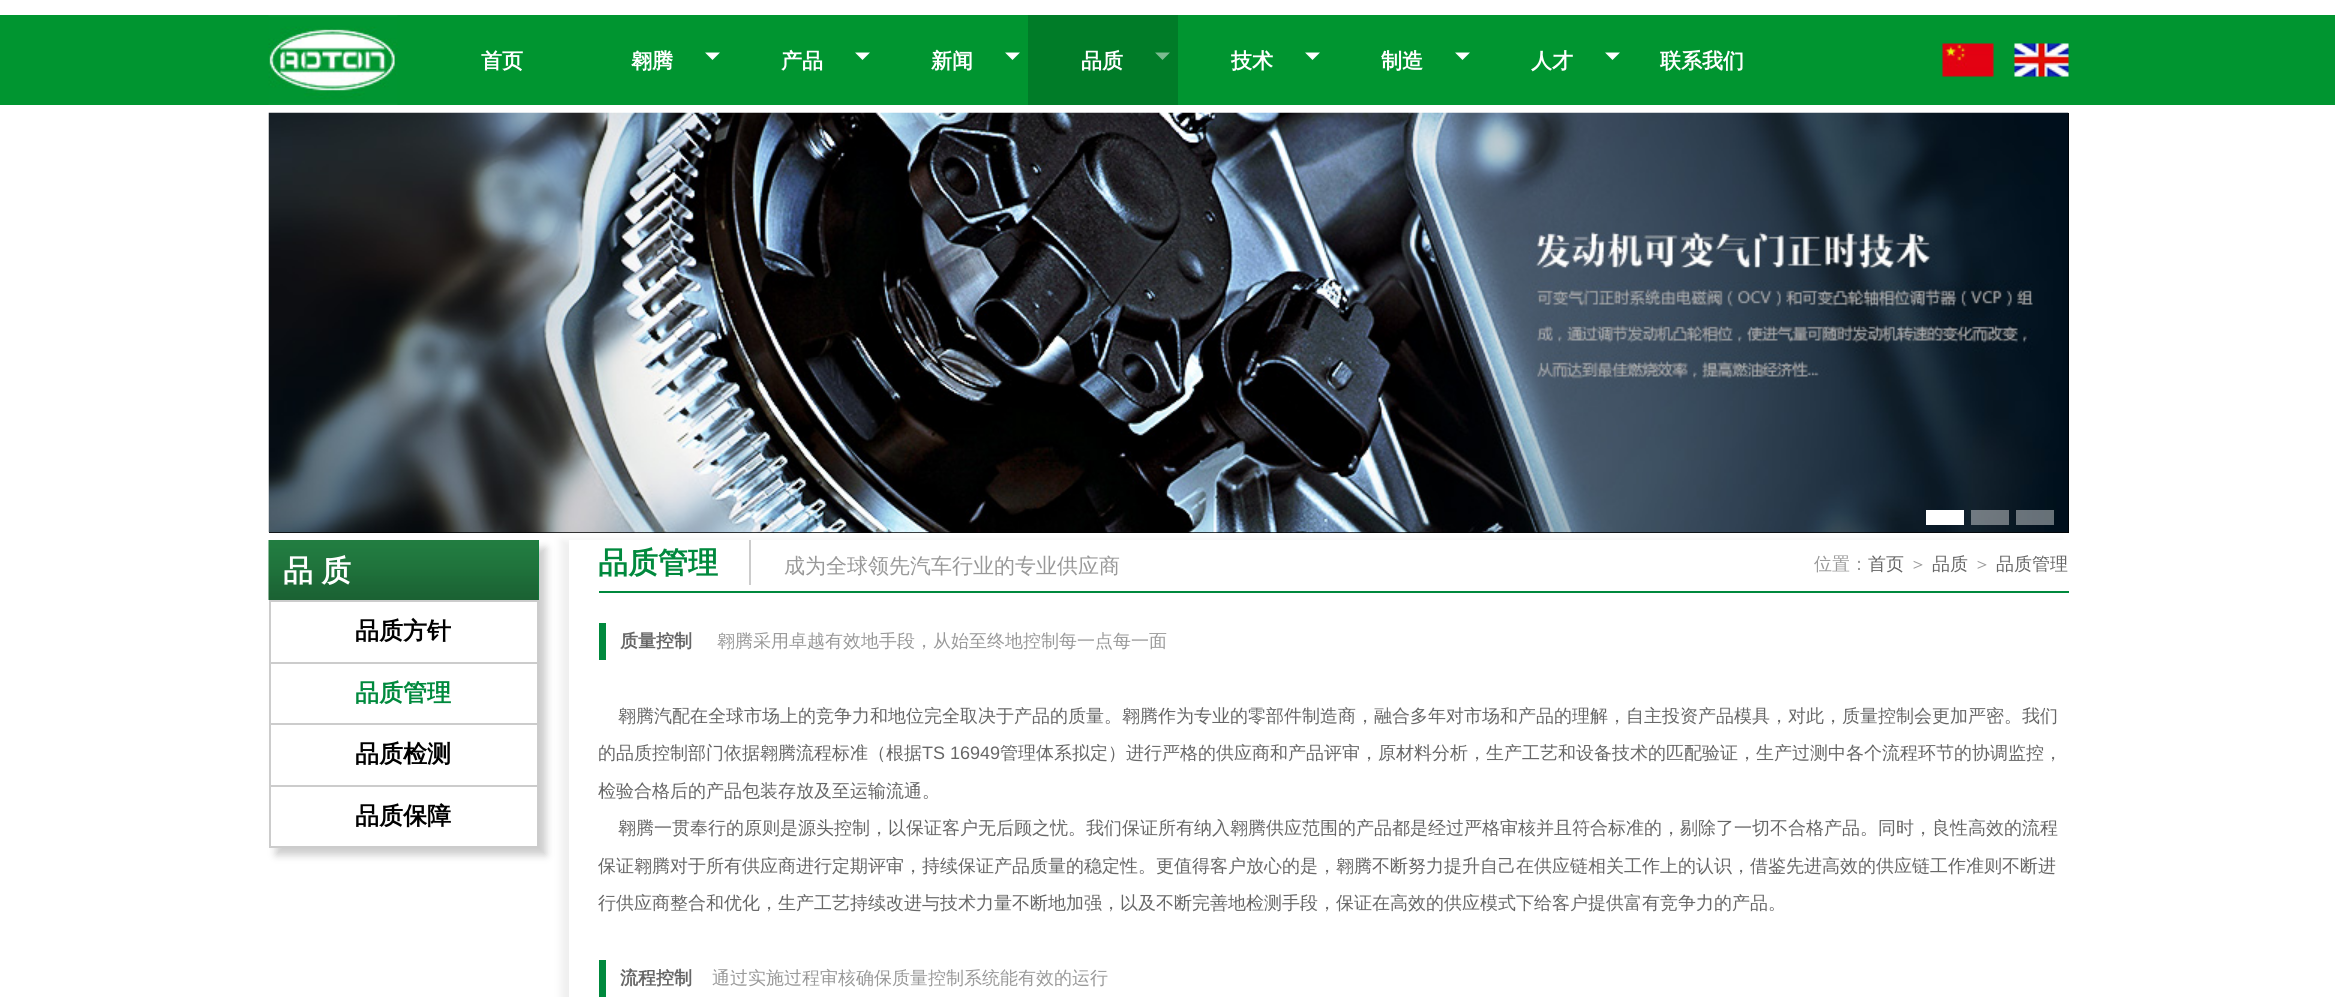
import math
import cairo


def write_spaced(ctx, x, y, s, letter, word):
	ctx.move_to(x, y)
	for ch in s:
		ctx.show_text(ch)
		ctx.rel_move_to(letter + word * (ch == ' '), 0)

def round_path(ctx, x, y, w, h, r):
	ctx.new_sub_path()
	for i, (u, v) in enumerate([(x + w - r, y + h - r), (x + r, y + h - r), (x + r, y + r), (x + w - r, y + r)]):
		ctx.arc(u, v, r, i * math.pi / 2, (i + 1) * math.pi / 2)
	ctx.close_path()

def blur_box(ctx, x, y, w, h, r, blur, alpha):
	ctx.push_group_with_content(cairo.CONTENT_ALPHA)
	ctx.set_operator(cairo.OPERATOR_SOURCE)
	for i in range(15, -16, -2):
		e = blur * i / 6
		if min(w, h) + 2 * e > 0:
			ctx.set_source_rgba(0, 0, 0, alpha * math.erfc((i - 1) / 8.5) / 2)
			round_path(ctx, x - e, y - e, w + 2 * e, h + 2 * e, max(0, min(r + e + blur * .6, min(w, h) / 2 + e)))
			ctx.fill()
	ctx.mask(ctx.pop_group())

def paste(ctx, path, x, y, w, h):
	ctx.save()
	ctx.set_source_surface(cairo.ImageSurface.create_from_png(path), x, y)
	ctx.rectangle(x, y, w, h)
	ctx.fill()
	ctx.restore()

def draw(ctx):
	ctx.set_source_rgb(1, 1, 1)
	ctx.paint()
	ctx.set_source_rgb(0, 0.584, 0.188)
	ctx.rectangle(0, 15, 2335, 90)
	ctx.fill()
	paste(ctx, 'media/1.png', 268, 15, 130, 90)
	ctx.select_font_face('WenQuanYi Zen Hei', cairo.FONT_SLANT_NORMAL, cairo.FONT_WEIGHT_BOLD)
	ctx.set_font_size(21)
	ctx.set_source_rgb(1, 1, 1)
	ctx.move_to(481, 68)
	ctx.show_text('首页')
	ctx.move_to(631, 68)
	ctx.show_text('翱腾')
	ctx.new_path()
	ctx.move_to(705, 52.5)
	ctx.line_to(720, 52.5)
	ctx.line_to(712.5, 60)
	ctx.close_path()
	ctx.fill()
	ctx.move_to(781, 68)
	ctx.show_text('产品')
	ctx.new_path()
	ctx.move_to(855, 52.5)
	ctx.line_to(870, 52.5)
	ctx.line_to(862.5, 60)
	ctx.close_path()
	ctx.fill()
	ctx.move_to(931, 68)
	ctx.show_text('新闻')
	ctx.new_path()
	ctx.move_to(1005, 52.5)
	ctx.line_to(1020, 52.5)
	ctx.line_to(1012.5, 60)
	ctx.close_path()
	ctx.fill()
	ctx.set_source_rgb(0, 0.486, 0.157)
	ctx.rectangle(1028, 15, 150, 90)
	ctx.fill()
	ctx.set_source_rgb(1, 1, 1)
	ctx.move_to(1081, 68)
	ctx.show_text('品质')
	ctx.set_source_rgb(0.482, 0.733, 0.565)
	ctx.new_path()
	ctx.move_to(1155, 52.5)
	ctx.line_to(1170, 52.5)
	ctx.line_to(1162.5, 60)
	ctx.close_path()
	ctx.fill()
	ctx.set_source_rgb(1, 1, 1)
	ctx.move_to(1231, 68)
	ctx.show_text('技术')
	ctx.new_path()
	ctx.move_to(1305, 52.5)
	ctx.line_to(1320, 52.5)
	ctx.line_to(1312.5, 60)
	ctx.close_path()
	ctx.fill()
	ctx.move_to(1381, 68)
	ctx.show_text('制造')
	ctx.new_path()
	ctx.move_to(1455, 52.5)
	ctx.line_to(1470, 52.5)
	ctx.line_to(1462.5, 60)
	ctx.close_path()
	ctx.fill()
	ctx.move_to(1531, 68)
	ctx.show_text('人才')
	ctx.new_path()
	ctx.move_to(1605, 52.5)
	ctx.line_to(1620, 52.5)
	ctx.line_to(1612.5, 60)
	ctx.close_path()
	ctx.fill()
	ctx.move_to(1660, 68)
	ctx.show_text('联系我们')
	paste(ctx, 'media/2.png', 1942, 43, 52, 34)
	paste(ctx, 'media/3.png', 2014, 43, 55, 34)
	ctx.save()
	ctx.set_fill_rule(cairo.FILL_RULE_EVEN_ODD)
	ctx.new_path()
	ctx.move_to(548, 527)
	ctx.line_to(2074, 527)
	ctx.line_to(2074, 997)
	ctx.line_to(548, 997)
	ctx.close_path()
	ctx.move_to(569, 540)
	ctx.line_to(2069, 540)
	ctx.line_to(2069, 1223)
	ctx.line_to(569, 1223)
	ctx.close_path()
	ctx.clip()
	ctx.set_source_rgb(0.937, 0.937, 0.937)
	blur_box(ctx, 561, 540, 1500, 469, 0, 4, 1)
	ctx.restore()
	ctx.set_source_rgb(0, 0, 0)
	ctx.rectangle(269, 113, 1800, 420)
	ctx.fill()
	paste(ctx, 'media/4.png', 268, 112, 1801, 421)
	ctx.set_source_rgb(1, 1, 1)
	ctx.rectangle(1926, 510, 38, 15)
	ctx.fill()
	ctx.set_source_rgba(1, 1, 1, 0.4)
	ctx.rectangle(1971, 510, 38, 15)
	ctx.fill()
	ctx.rectangle(2016, 510, 38, 15)
	ctx.fill()
	ctx.save()
	ctx.set_fill_rule(cairo.FILL_RULE_EVEN_ODD)
	ctx.new_path()
	ctx.move_to(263, 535)
	ctx.line_to(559, 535)
	ctx.line_to(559, 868)
	ctx.line_to(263, 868)
	ctx.close_path()
	ctx.move_to(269, 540)
	ctx.line_to(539, 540)
	ctx.line_to(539, 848)
	ctx.line_to(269, 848)
	ctx.close_path()
	ctx.clip()
	ctx.set_source_rgb(0.8, 0.8, 0.8)
	blur_box(ctx, 276, 548, 270, 307, 0, 4, 1)
	ctx.restore()
	ctx.set_source_rgb(0, 0.537, 0.239)
	ctx.rectangle(538, 540, 1, 60)
	ctx.fill()
	paste(ctx, 'media/5.png', 268, 540, 271, 60)
	ctx.set_font_size(30)
	ctx.set_source_rgb(1, 1, 1)
	write_spaced(ctx, 283, 581, '品质', 8, 0)
	ctx.set_source_rgb(0.8, 0.8, 0.8)
	ctx.rectangle(269, 600, 270, 2)
	ctx.rectangle(537, 600, 2, 248)
	ctx.rectangle(269, 600, 2, 248)
	ctx.rectangle(270, 662, 267, 2)
	ctx.fill()
	ctx.set_font_size(24)
	ctx.set_source_rgb(0, 0, 0)
	ctx.move_to(355, 639)
	ctx.show_text('品质方针')
	ctx.set_source_rgb(0.8, 0.8, 0.8)
	ctx.rectangle(270, 723, 267, 2)
	ctx.fill()
	ctx.set_source_rgb(0, 0.537, 0.239)
	ctx.move_to(355, 701)
	ctx.show_text('品质管理')
	ctx.set_source_rgb(0.8, 0.8, 0.8)
	ctx.rectangle(270, 785, 267, 2)
	ctx.fill()
	ctx.set_source_rgb(0, 0, 0)
	ctx.move_to(355, 762)
	ctx.show_text('品质检测')
	ctx.set_source_rgb(0.8, 0.8, 0.8)
	ctx.rectangle(270, 846, 267, 2)
	ctx.fill()
	ctx.set_source_rgb(0, 0, 0)
	ctx.move_to(355, 824)
	ctx.show_text('品质保障')
	ctx.set_source_rgb(0, 0.537, 0.239)
	ctx.rectangle(599, 591, 1470, 2)
	ctx.fill()
	ctx.set_source_rgb(0.8, 0.8, 0.8)
	ctx.rectangle(749, 540, 2, 45)
	ctx.fill()
	ctx.set_font_size(30)
	ctx.set_source_rgb(0, 0.537, 0.239)
	ctx.move_to(598, 573)
	ctx.show_text('品质管理')
	ctx.select_font_face('WenQuanYi Zen Hei Medium')
	ctx.set_font_size(21)
	ctx.set_source_rgb(0.6, 0.6, 0.6)
	ctx.move_to(784, 573)
	ctx.show_text('成为全球领先汽车行业的专业供应商')
	ctx.set_font_size(18)
	ctx.move_to(1814, 570)
	ctx.show_text('位置：')
	ctx.set_source_rgb(0.4, 0.4, 0.4)
	ctx.move_to(1868, 570)
	ctx.show_text('首页')
	ctx.set_source_rgb(0.6, 0.6, 0.6)
	ctx.move_to(1909, 570)
	ctx.show_text('＞')
	ctx.set_source_rgb(0.4, 0.4, 0.4)
	ctx.move_to(1932, 570)
	ctx.show_text('品质')
	ctx.set_source_rgb(0.6, 0.6, 0.6)
	ctx.move_to(1973, 570)
	ctx.show_text('＞')
	ctx.set_source_rgb(0.4, 0.4, 0.4)
	ctx.move_to(1996, 570)
	ctx.show_text('品质管理')
	ctx.set_source_rgb(0, 0.537, 0.239)
	ctx.rectangle(599, 623, 7, 37)
	ctx.fill()
	ctx.select_font_face('WenQuanYi Zen Hei', cairo.FONT_SLANT_NORMAL, cairo.FONT_WEIGHT_BOLD)
	ctx.set_source_rgb(0.4, 0.4, 0.4)
	ctx.move_to(620, 647)
	ctx.show_text('质量控制')
	ctx.select_font_face('WenQuanYi Zen Hei Medium')
	ctx.set_source_rgb(0.6, 0.6, 0.6)
	ctx.move_to(717, 647)
	ctx.show_text('翱腾采用卓越有效地手段，从始至终地控制每一点每一面')
	ctx.set_source_rgb(0.4, 0.4, 0.4)
	ctx.move_to(618, 722)
	ctx.show_text('翱腾汽配在全球市场上的竞争力和地位完全取决于产品的质量。翱腾作为专业的零部件制造商，融合多年对市场和产品的理解，自主投资产品模具，对此，质量控制会更加严密。我们')
	ctx.move_to(598, 759)
	ctx.show_text('的品质控制部门依据翱腾流程标准（根据')
	ctx.select_font_face('Liberation Sans')
	ctx.move_to(922, 759)
	ctx.show_text('TS 16949')
	ctx.select_font_face('WenQuanYi Zen Hei Medium')
	for x, y, s in [
		(1000, 759, '管理体系拟定）进行严格的供应商和产品评审，原材料分析，生产工艺和设备技术的匹配验证，生产过测中各个流程环节的协调监控，'),
		(598, 797, '检验合格后的产品包装存放及至运输流通。'),
		(618, 834, '翱腾一贯奉行的原则是源头控制，以保证客户无后顾之忧。我们保证所有纳入翱腾供应范围的产品都是经过严格审核并且符合标准的，剔除了一切不合格产品。同时，良性高效的流程'),
		(598, 872, '保证翱腾对于所有供应商进行定期评审，持续保证产品质量的稳定性。更值得客户放心的是，翱腾不断努力提升自己在供应链相关工作上的认识，借鉴先进高效的供应链工作准则不断进'),
		(598, 909, '行供应商整合和优化，生产工艺持续改进与技术力量不断地加强，以及不断完善地检测手段，保证在高效的供应模式下给客户提供富有竞争力的产品。'),
	]:
		ctx.move_to(x, y)
		ctx.show_text(s)
	ctx.set_source_rgb(0, 0.537, 0.239)
	ctx.rectangle(599, 960, 7, 37)
	ctx.fill()
	ctx.select_font_face('WenQuanYi Zen Hei', cairo.FONT_SLANT_NORMAL, cairo.FONT_WEIGHT_BOLD)
	ctx.set_source_rgb(0.4, 0.4, 0.4)
	ctx.move_to(620, 984)
	ctx.show_text('流程控制')
	ctx.select_font_face('WenQuanYi Zen Hei Medium')
	ctx.set_source_rgb(0.6, 0.6, 0.6)
	ctx.move_to(712, 984)
	ctx.show_text('通过实施过程审核确保质量控制系统能有效的运行')


surface = cairo.ImageSurface(cairo.FORMAT_RGB24, 2335, 997)
ctx = cairo.Context(surface)
options = cairo.FontOptions()
options.set_hint_metrics(cairo.HINT_METRICS_OFF)
options.set_hint_style(cairo.HINT_STYLE_NONE)
ctx.set_font_options(options)
ctx.set_miter_limit(4)
draw(ctx)
surface.write_to_png('image.png')
